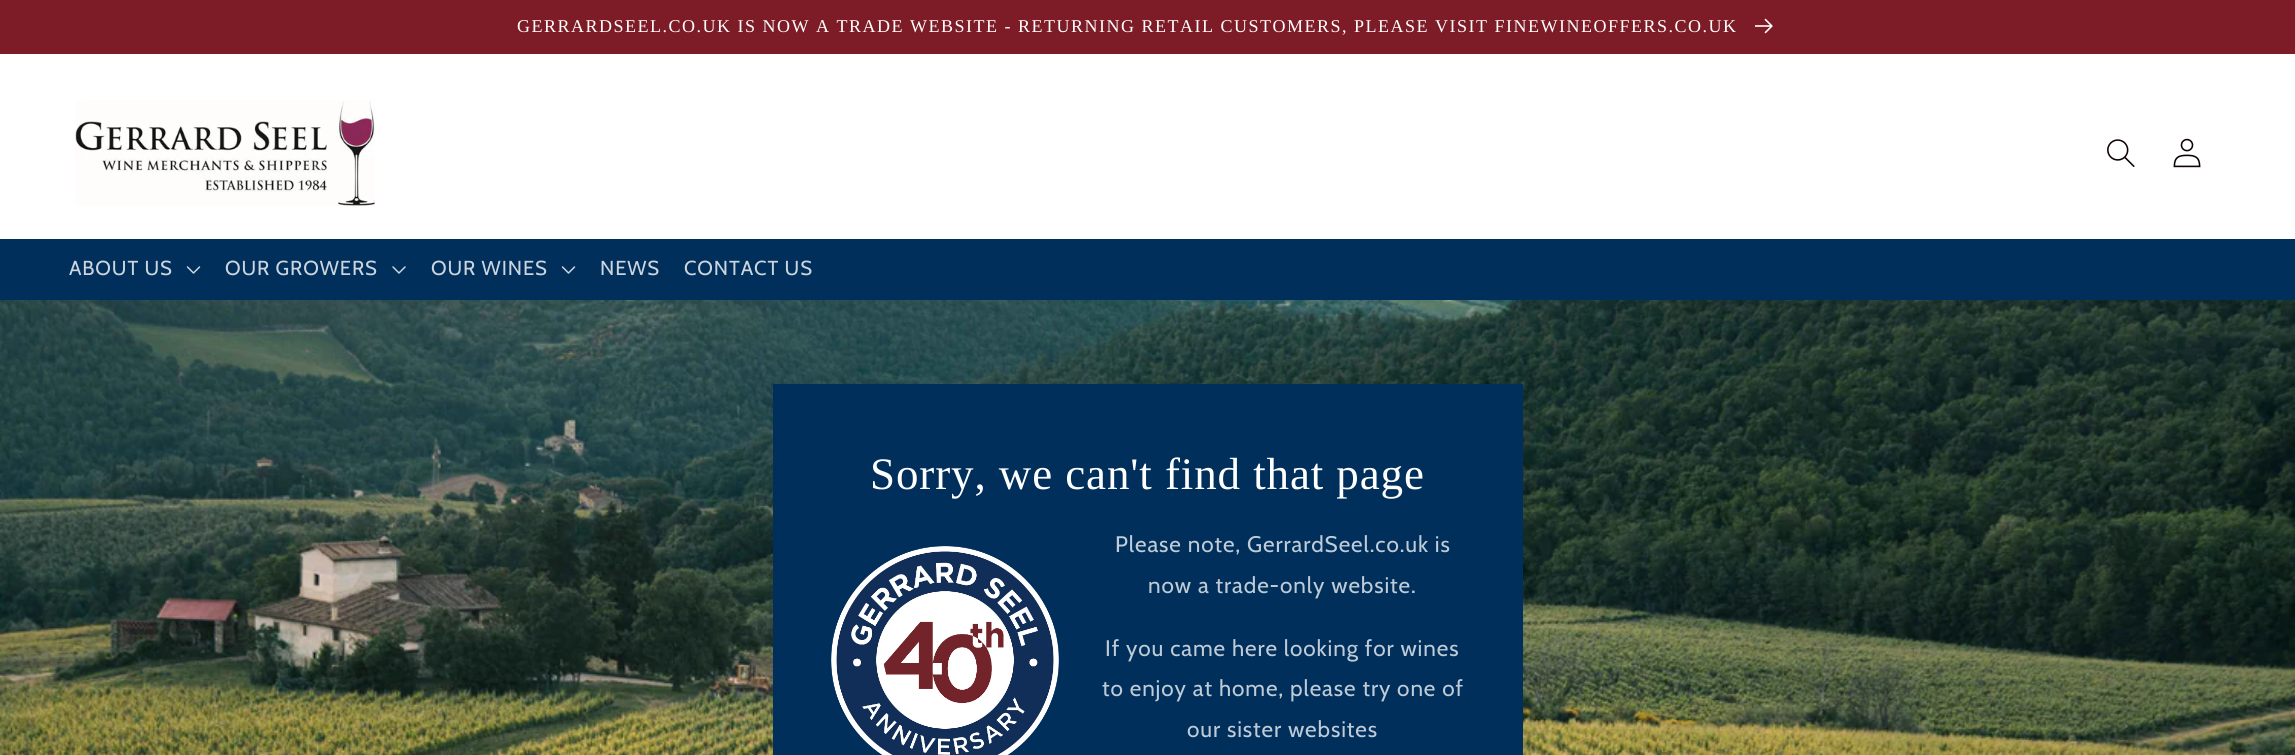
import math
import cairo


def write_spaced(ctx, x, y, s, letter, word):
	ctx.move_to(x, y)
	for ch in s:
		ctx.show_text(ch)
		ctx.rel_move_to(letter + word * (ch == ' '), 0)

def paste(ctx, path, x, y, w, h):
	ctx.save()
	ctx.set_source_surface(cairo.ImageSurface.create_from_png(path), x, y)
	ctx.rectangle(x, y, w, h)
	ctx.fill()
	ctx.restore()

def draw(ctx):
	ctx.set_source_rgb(1, 1, 1)
	ctx.paint()
	ctx.set_source_rgb(0.49, 0.11, 0.153)
	ctx.rectangle(0, 0, 2295, 54)
	ctx.fill()
	ctx.select_font_face('Liberation Serif')
	ctx.set_font_size(18)
	ctx.set_source_rgb(1, 1, 1)
	write_spaced(ctx, 517, 32, 'GERRARDSEEL.CO.UK IS NOW A TRADE WEBSITE - RETURNING RETAIL CUSTOMERS, PLEASE VISIT FINEWINEOFFERS.CO.UK', 1.5, 0)
	paste(ctx, 'media/1.png', 1755, 18, 18, 16)
	paste(ctx, 'media/2.png', 75, 100, 300, 106)
	paste(ctx, 'media/3.png', 2107, 139, 28, 28)
	paste(ctx, 'media/4.png', 2173, 138, 28, 30)
	ctx.set_source_rgb(0, 0.184, 0.357)
	ctx.rectangle(0, 239, 2295, 61)
	ctx.fill()
	ctx.select_font_face('Cabin')
	ctx.set_font_size(20.25)
	ctx.set_source_rgb(0.8, 0.835, 0.871)
	write_spaced(ctx, 69, 275, 'ABOUT US', 0.9, 0)
	paste(ctx, 'media/5.png', 186, 266, 15, 8)
	write_spaced(ctx, 225, 275, 'OUR GROWERS', 0.9, 0)
	paste(ctx, 'media/6.png', 392, 266, 14, 8)
	write_spaced(ctx, 431, 275, 'OUR WINES', 0.9, 0)
	paste(ctx, 'media/5.png', 561, 266, 15, 8)
	write_spaced(ctx, 600, 275, 'NEWS', 0.9, 0)
	write_spaced(ctx, 684, 275, 'CONTACT US', 0.9, 0)
	paste(ctx, 'media/7.png', 0, 300, 2295, 455)
	ctx.set_source_rgb(0, 0.184, 0.357)
	ctx.rectangle(773, 384, 750, 371)
	ctx.fill()
	ctx.select_font_face('Liberation Serif')
	ctx.set_font_size(45)
	ctx.set_source_rgb(1, 1, 1)
	write_spaced(ctx, 870, 489, 'Sorry, we can\'t find that page', 0.9, 0)
	paste(ctx, 'media/8.png', 831, 546, 228, 209)
	ctx.select_font_face('Cabin')
	ctx.set_font_size(22.5)
	ctx.set_source_rgb(0.749, 0.796, 0.839)
	for x, y, s in [
		(1115, 552, 'Please note, GerrardSeel.co.uk is'),
		(1148, 593, 'now a trade-only website.'),
		(1105, 656, 'If you came here looking for wines'),
		(1102, 696, 'to enjoy at home, please try one of'),
		(1187, 737, 'our sister websites'),
	]:
		write_spaced(ctx, x, y, s, 0.9, 0)


surface = cairo.ImageSurface(cairo.FORMAT_RGB24, 2295, 755)
ctx = cairo.Context(surface)
options = cairo.FontOptions()
options.set_hint_metrics(cairo.HINT_METRICS_OFF)
options.set_hint_style(cairo.HINT_STYLE_NONE)
ctx.set_font_options(options)
ctx.set_miter_limit(4)
draw(ctx)
surface.write_to_png('image.png')
